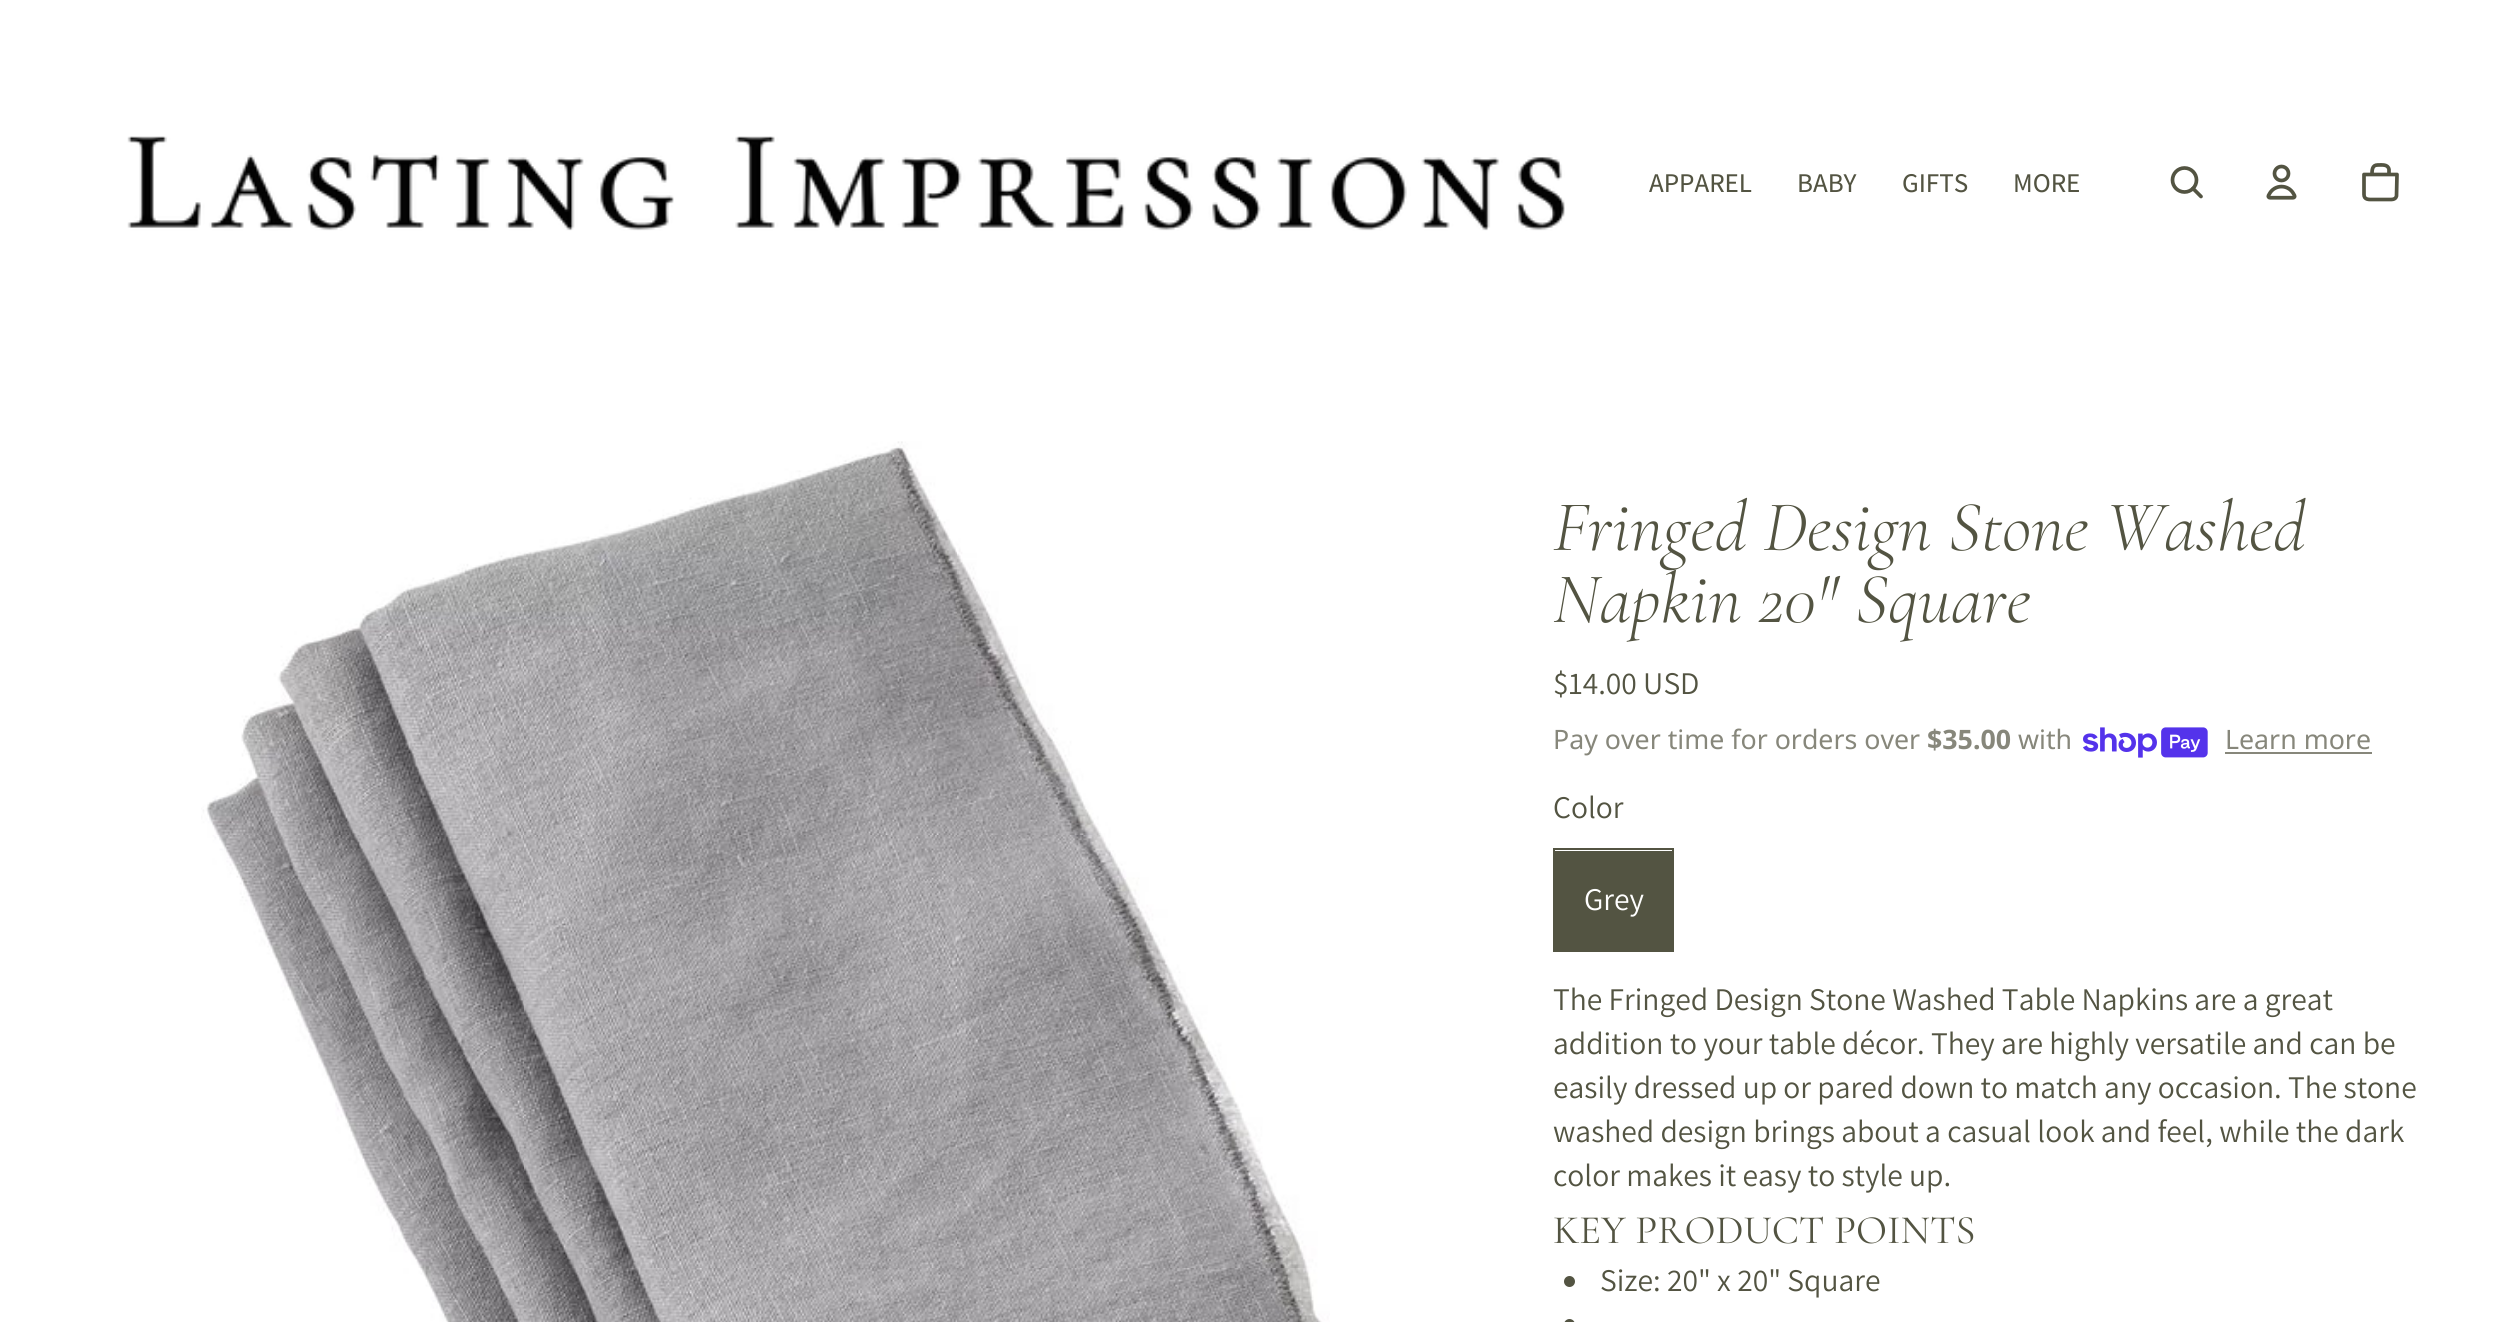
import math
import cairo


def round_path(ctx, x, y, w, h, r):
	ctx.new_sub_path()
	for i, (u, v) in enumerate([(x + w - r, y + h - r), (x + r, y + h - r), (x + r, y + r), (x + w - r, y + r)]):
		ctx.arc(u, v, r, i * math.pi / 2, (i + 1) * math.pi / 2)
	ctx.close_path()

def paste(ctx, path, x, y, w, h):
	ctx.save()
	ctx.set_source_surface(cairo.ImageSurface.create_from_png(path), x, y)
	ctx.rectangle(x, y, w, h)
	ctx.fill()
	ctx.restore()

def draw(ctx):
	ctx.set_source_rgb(1, 1, 1)
	ctx.paint()
	paste(ctx, 'media/1.png', 127, 136, 1438, 95)
	ctx.select_font_face('Assistant Medium')
	ctx.set_font_size(27)
	ctx.set_source_rgb(0.325, 0.329, 0.259)
	for x, y, s in [
		(1649, 192, 'APPAREL'),
		(1797, 192, 'BABY'),
		(1902, 192, 'GIFTS'),
		(2013, 192, 'MORE'),
	]:
		ctx.move_to(x, y)
		ctx.show_text(s)
	ctx.new_path()
	ctx.arc(2184.5, 180, 12, 0, 2 * math.pi)
	ctx.set_line_width(3.7)
	ctx.stroke()
	ctx.new_path()
	ctx.move_to(2193, 188.5)
	ctx.line_to(2201, 196.5)
	ctx.set_line_cap(cairo.LINE_CAP_ROUND)
	ctx.set_line_join(cairo.LINE_JOIN_ROUND)
	ctx.stroke()
	paste(ctx, 'media/2.png', 2266, 164, 31, 36)
	ctx.new_path()
	ctx.move_to(2364, 174.5)
	ctx.line_to(2397, 174.5)
	ctx.line_to(2396.5, 196)
	ctx.curve_to(2395.5, 200, 2391.5, 199.5, 2388, 199.5)
	ctx.line_to(2373, 199.5)
	ctx.curve_to(2369, 199.5, 2364, 200, 2364, 194.5)
	ctx.close_path()
	ctx.move_to(2377.5, 165)
	ctx.curve_to(2382, 165, 2388, 164, 2389, 169.5)
	ctx.line_to(2389, 174.5)
	ctx.line_to(2372, 174.5)
	ctx.curve_to(2372, 170.5, 2372, 165, 2377.5, 165)
	ctx.stroke()
	paste(ctx, 'media/3.png', 201, 441, 1129, 881)
	ctx.select_font_face('Cormorant Light', cairo.FONT_SLANT_ITALIC)
	ctx.set_font_size(72)
	ctx.move_to(1553, 550)
	ctx.show_text('Fringed Design Stone Washed')
	ctx.move_to(1553, 622)
	ctx.show_text('Napkin 20" Square')
	ctx.select_font_face('Assistant')
	ctx.set_font_size(31.5)
	ctx.move_to(1553, 694)
	ctx.show_text('$14.00 USD')
	ctx.select_font_face('Noto Sans')
	ctx.set_font_size(26.75)
	ctx.set_source_rgb(0.529, 0.529, 0.482)
	ctx.move_to(1553, 749)
	ctx.show_text('Pay over time for orders over')
	ctx.select_font_face('Noto Sans', cairo.FONT_SLANT_NORMAL, cairo.FONT_WEIGHT_BOLD)
	ctx.move_to(1927, 749)
	ctx.show_text('$35.00')
	ctx.select_font_face('Noto Sans')
	ctx.move_to(2018, 749)
	ctx.show_text('with')
	paste(ctx, 'media/4.png', 2083, 727, 125, 31)
	ctx.move_to(2225, 749)
	ctx.show_text('Learn more')
	ctx.rectangle(2225, 752, 147, 2)
	ctx.fill()
	ctx.select_font_face('Assistant')
	ctx.set_font_size(31.5)
	ctx.set_source_rgb(0.325, 0.329, 0.259)
	ctx.move_to(1553, 818)
	ctx.show_text('Color')
	ctx.rectangle(1554, 849, 119, 102)
	ctx.set_line_width(2)
	ctx.set_line_cap(cairo.LINE_CAP_BUTT)
	ctx.set_line_join(cairo.LINE_JOIN_MITER)
	ctx.stroke()
	ctx.rectangle(1555, 851, 117, 99)
	ctx.fill()
	ctx.set_source_rgb(1, 1, 1)
	ctx.move_to(1584, 910)
	ctx.show_text('Grey')
	ctx.set_source_rgb(0.325, 0.329, 0.259)
	for x, y, s in [
		(1553, 1010, 'The Fringed Design Stone Washed Table Napkins are a great'),
		(1553, 1054, 'addition to your table décor. They are highly versatile and can be'),
		(1553, 1098, 'easily dressed up or pared down to match any occasion. The stone'),
		(1553, 1142, 'washed design brings about a casual look and feel, while the dark'),
		(1553, 1186, 'color makes it easy to style up.'),
	]:
		ctx.move_to(x, y)
		ctx.show_text(s)
	ctx.select_font_face('Cormorant')
	ctx.set_font_size(40.5)
	ctx.move_to(1553, 1243)
	ctx.show_text('KEY PRODUCT POINTS')
	ctx.new_path()
	ctx.arc(1569.5, 1281.5, 5.5, 0, 2 * math.pi)
	ctx.fill()
	ctx.select_font_face('Assistant')
	ctx.set_font_size(31.5)
	ctx.move_to(1600, 1291)
	ctx.show_text('Size: 20" x 20" Square')
	round_path(ctx, 1564, 1319, 11, 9, 5.5)
	ctx.fill()


surface = cairo.ImageSurface(cairo.FORMAT_RGB24, 2519, 1322)
ctx = cairo.Context(surface)
options = cairo.FontOptions()
options.set_hint_metrics(cairo.HINT_METRICS_OFF)
options.set_hint_style(cairo.HINT_STYLE_NONE)
ctx.set_font_options(options)
ctx.set_miter_limit(4)
draw(ctx)
surface.write_to_png('image.png')
